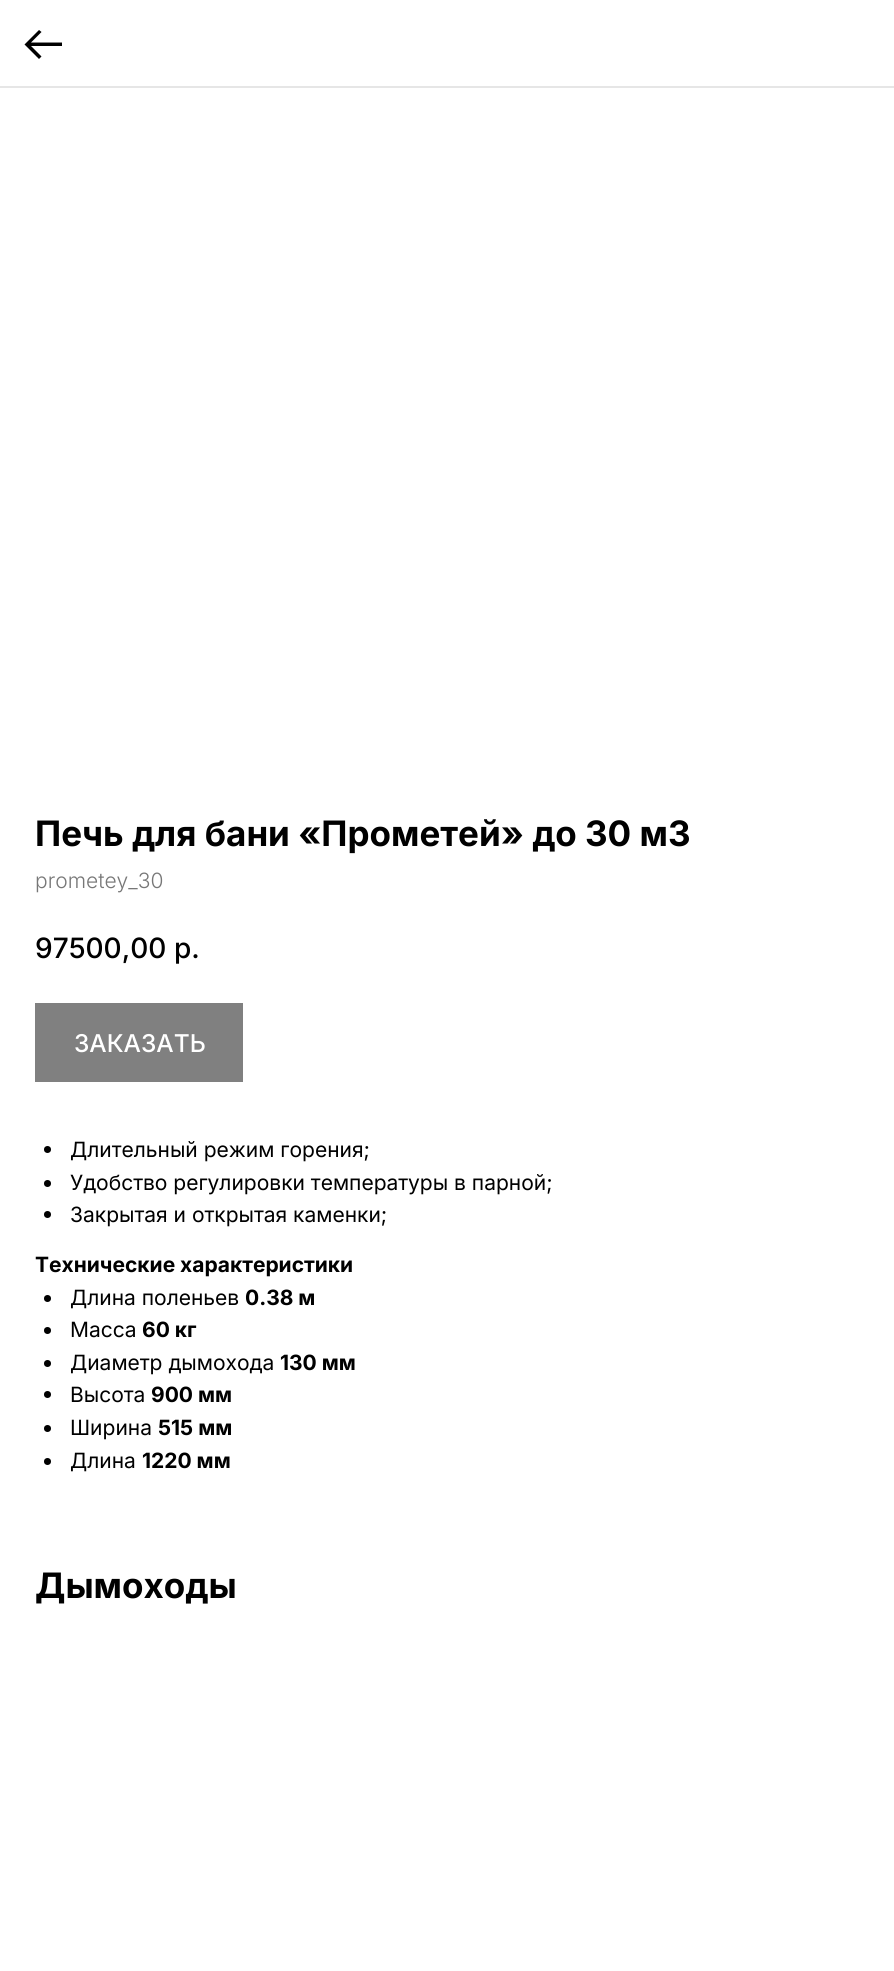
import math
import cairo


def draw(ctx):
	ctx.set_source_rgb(1, 1, 1)
	ctx.paint()
	ctx.set_source_rgb(0.902, 0.902, 0.902)
	ctx.rectangle(0, 86, 894, 2)
	ctx.fill()
	ctx.set_source_rgb(0, 0, 0)
	ctx.new_path()
	ctx.move_to(39, 30)
	ctx.line_to(41.5, 32)
	ctx.line_to(31, 42.5)
	ctx.line_to(62, 42.5)
	ctx.line_to(62, 46)
	ctx.line_to(31, 46)
	ctx.line_to(41.5, 56.5)
	ctx.line_to(39, 59)
	ctx.line_to(24.5, 44.5)
	ctx.close_path()
	ctx.fill()
	ctx.select_font_face('Inter', cairo.FONT_SLANT_NORMAL, cairo.FONT_WEIGHT_BOLD)
	ctx.set_font_size(35)
	ctx.move_to(35, 846)
	ctx.show_text('Печь для бани «Прометей» до 30 м3')
	ctx.select_font_face('Inter Light')
	ctx.set_font_size(21)
	ctx.set_source_rgb(0.467, 0.467, 0.467)
	ctx.move_to(35, 888)
	ctx.show_text('prometey_30')
	ctx.select_font_face('Inter Medium')
	ctx.set_font_size(28)
	ctx.set_source_rgb(0, 0, 0)
	ctx.move_to(35, 958)
	ctx.show_text('97500,00')
	ctx.move_to(174, 958)
	ctx.show_text('р.')
	ctx.set_source_rgb(0.502, 0.502, 0.502)
	ctx.rectangle(35, 1003, 208, 79)
	ctx.fill()
	ctx.set_font_size(24.5)
	ctx.set_source_rgb(1, 1, 1)
	ctx.move_to(74, 1052)
	ctx.show_text('ЗАКАЗАТЬ')
	ctx.set_source_rgb(0, 0, 0)
	ctx.new_path()
	ctx.arc(47.5, 1149.5, 3.5, 0, 2 * math.pi)
	ctx.fill()
	ctx.select_font_face('Inter')
	ctx.set_font_size(21)
	ctx.move_to(70, 1157)
	ctx.show_text('Длительный режим горения;')
	ctx.new_path()
	ctx.arc(47.5, 1183.5, 3.5, 0, 2 * math.pi)
	ctx.fill()
	ctx.move_to(70, 1190)
	ctx.show_text('Удобство регулировки температуры в парной;')
	ctx.new_path()
	ctx.arc(47.5, 1214.5, 3.5, 0, 2 * math.pi)
	ctx.fill()
	ctx.move_to(70, 1222)
	ctx.show_text('Закрытая и открытая каменки;')
	ctx.select_font_face('Inter', cairo.FONT_SLANT_NORMAL, cairo.FONT_WEIGHT_BOLD)
	ctx.move_to(35, 1272)
	ctx.show_text('Технические характеристики')
	ctx.new_path()
	ctx.arc(47.5, 1298.5, 3.5, 0, 2 * math.pi)
	ctx.fill()
	ctx.select_font_face('Inter')
	ctx.move_to(70, 1305)
	ctx.show_text('Длина поленьев')
	ctx.select_font_face('Inter', cairo.FONT_SLANT_NORMAL, cairo.FONT_WEIGHT_BOLD)
	ctx.move_to(245, 1305)
	ctx.show_text('0.38 м')
	ctx.new_path()
	ctx.arc(47.5, 1330.5, 3.5, 0, 2 * math.pi)
	ctx.fill()
	ctx.select_font_face('Inter')
	ctx.move_to(70, 1337)
	ctx.show_text('Масса')
	ctx.select_font_face('Inter', cairo.FONT_SLANT_NORMAL, cairo.FONT_WEIGHT_BOLD)
	ctx.move_to(142, 1337)
	ctx.show_text('60 кг')
	ctx.new_path()
	ctx.arc(47.5, 1363.5, 3.5, 0, 2 * math.pi)
	ctx.fill()
	ctx.select_font_face('Inter')
	ctx.move_to(70, 1370)
	ctx.show_text('Диаметр дымохода')
	ctx.select_font_face('Inter', cairo.FONT_SLANT_NORMAL, cairo.FONT_WEIGHT_BOLD)
	ctx.move_to(280, 1370)
	ctx.show_text('130 мм')
	ctx.new_path()
	ctx.arc(47.5, 1394.5, 3.5, 0, 2 * math.pi)
	ctx.fill()
	ctx.select_font_face('Inter')
	ctx.move_to(70, 1402)
	ctx.show_text('Высота')
	ctx.select_font_face('Inter', cairo.FONT_SLANT_NORMAL, cairo.FONT_WEIGHT_BOLD)
	ctx.move_to(151, 1402)
	ctx.show_text('900 мм')
	ctx.new_path()
	ctx.arc(47.5, 1428.5, 3.5, 0, 2 * math.pi)
	ctx.fill()
	ctx.select_font_face('Inter')
	ctx.move_to(70, 1435)
	ctx.show_text('Ширина')
	ctx.select_font_face('Inter', cairo.FONT_SLANT_NORMAL, cairo.FONT_WEIGHT_BOLD)
	ctx.move_to(158, 1435)
	ctx.show_text('515 мм')
	ctx.new_path()
	ctx.arc(47.5, 1461.5, 3.5, 0, 2 * math.pi)
	ctx.fill()
	ctx.select_font_face('Inter')
	ctx.move_to(70, 1468)
	ctx.show_text('Длина')
	ctx.select_font_face('Inter', cairo.FONT_SLANT_NORMAL, cairo.FONT_WEIGHT_BOLD)
	ctx.move_to(142, 1468)
	ctx.show_text('1220 мм')
	ctx.set_font_size(35)
	ctx.move_to(35, 1598)
	ctx.show_text('Дымоходы')


surface = cairo.ImageSurface(cairo.FORMAT_RGB24, 894, 1971)
ctx = cairo.Context(surface)
options = cairo.FontOptions()
options.set_hint_metrics(cairo.HINT_METRICS_OFF)
options.set_hint_style(cairo.HINT_STYLE_NONE)
ctx.set_font_options(options)
ctx.set_miter_limit(4)
draw(ctx)
surface.write_to_png('image.png')
